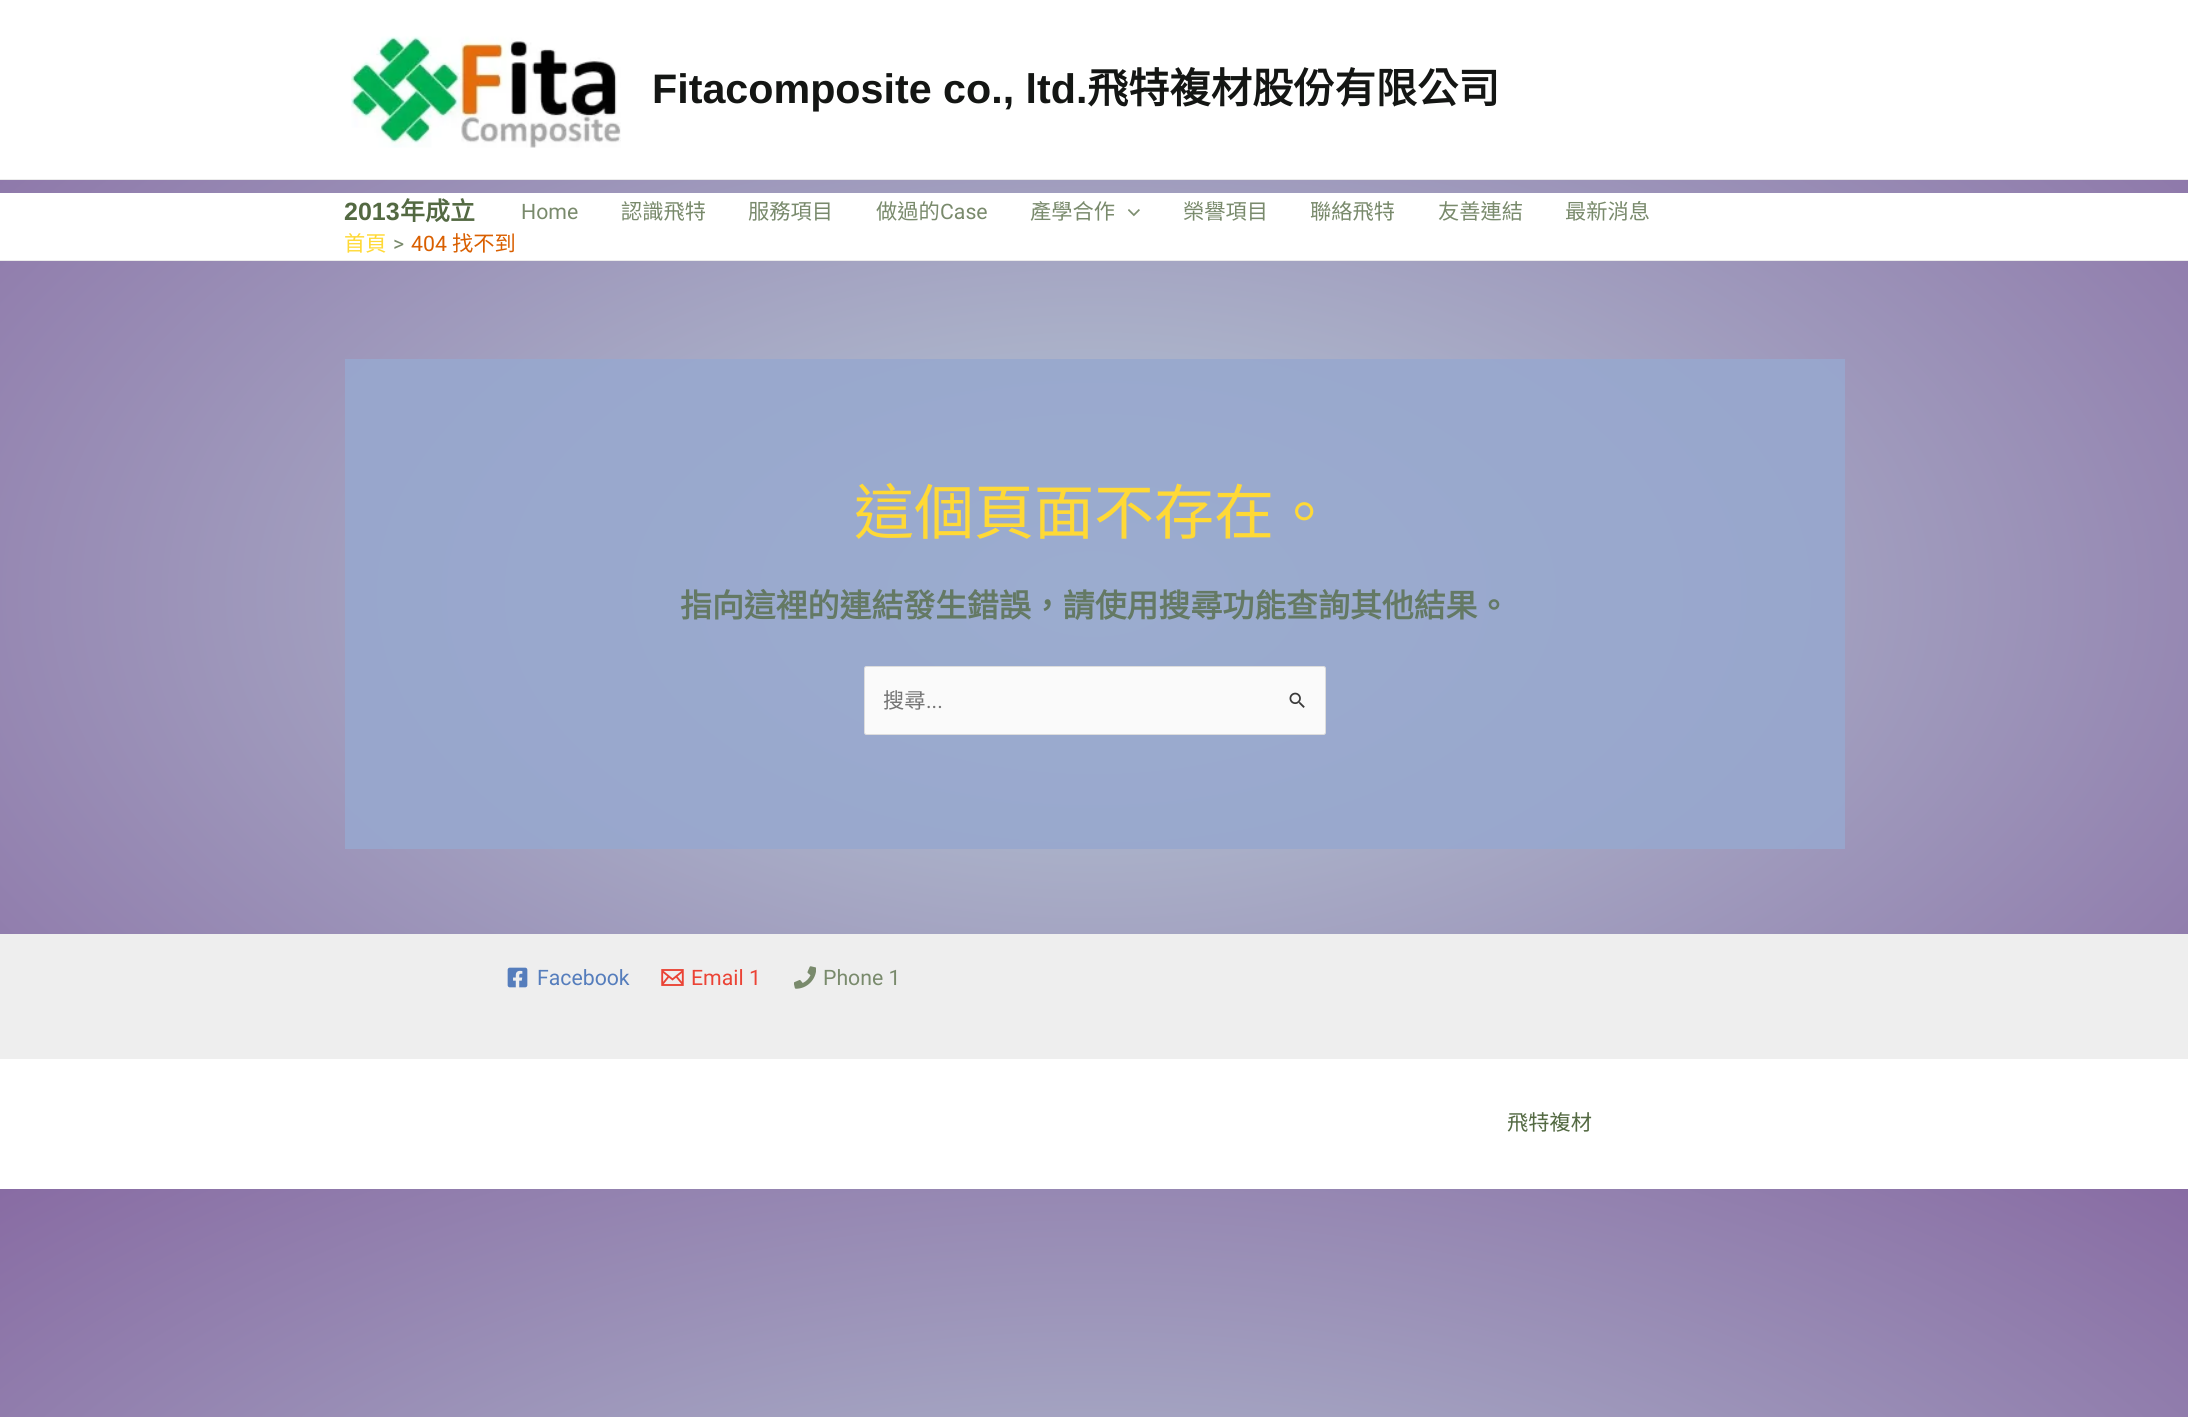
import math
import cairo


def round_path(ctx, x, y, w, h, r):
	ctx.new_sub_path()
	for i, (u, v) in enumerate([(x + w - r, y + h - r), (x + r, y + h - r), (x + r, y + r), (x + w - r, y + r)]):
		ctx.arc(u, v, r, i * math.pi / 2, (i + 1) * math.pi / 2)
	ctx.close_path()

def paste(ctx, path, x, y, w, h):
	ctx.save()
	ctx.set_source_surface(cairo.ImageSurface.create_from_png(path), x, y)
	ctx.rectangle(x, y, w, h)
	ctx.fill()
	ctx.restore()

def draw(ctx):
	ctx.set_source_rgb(1, 1, 1)
	ctx.paint()
	gradient = cairo.RadialGradient(0, 0, 0, 0, 0, 1)
	gradient.set_matrix(cairo.Matrix(1 / 1548, 0, 0, 1 / 841, -1 * 1094 / 1548, -1 * 594 / 841))
	gradient.add_color_stop_rgba(0, 0.722, 0.804, 0.847, 1)
	gradient.add_color_stop_rgba(1, 0.533, 0.42, 0.639, 1)
	ctx.set_source(gradient)
	ctx.rectangle(0, 180, 2188, 754)
	ctx.fill()
	gradient = cairo.RadialGradient(0, 0, 0, 0, 0, 1)
	gradient.set_matrix(cairo.Matrix(1 / 1548, 0, 0, 1 / 841, -1 * 1094 / 1548, -1 * 594 / 841))
	gradient.add_color_stop_rgba(0, 0.608, 0.675, 0.812, 1)
	gradient.add_color_stop_rgba(1, 0.584, 0.627, 0.788, 1)
	ctx.set_source(gradient)
	ctx.rectangle(345, 359, 1500, 490)
	ctx.fill()
	gradient = cairo.RadialGradient(0, 0, 0, 0, 0, 1)
	gradient.set_matrix(cairo.Matrix(1 / 1548, 0, 0, 1 / 841, -1 * 1094 / 1548, -1 * 1783 / 841))
	gradient.add_color_stop_rgba(0, 0.722, 0.804, 0.847, 1)
	gradient.add_color_stop_rgba(1, 0.533, 0.42, 0.639, 1)
	ctx.set_source(gradient)
	ctx.rectangle(0, 1189, 2188, 228)
	ctx.fill()
	ctx.set_source_rgb(0.918, 0.918, 0.918)
	ctx.rectangle(0, 179, 2188, 1)
	ctx.fill()
	paste(ctx, 'media/1.png', 351, 36, 270, 112)
	ctx.select_font_face('Liberation Sans', cairo.FONT_SLANT_NORMAL, cairo.FONT_WEIGHT_BOLD)
	ctx.set_font_size(41.25)
	ctx.set_source_rgb(0.082, 0.086, 0.082)
	ctx.move_to(652, 103)
	ctx.show_text('Fitacomposite co., ltd.')
	ctx.select_font_face('Noto Sans CJK TC', cairo.FONT_SLANT_NORMAL, cairo.FONT_WEIGHT_BOLD)
	ctx.move_to(1087, 103)
	ctx.show_text('飛特複材股份有限公司')
	ctx.set_source_rgb(1, 1, 1)
	ctx.rectangle(0, 193, 2188, 67)
	ctx.fill()
	ctx.set_source_rgb(0.918, 0.918, 0.918)
	ctx.rectangle(0, 260, 2188, 1)
	ctx.fill()
	ctx.select_font_face('Liberation Sans', cairo.FONT_SLANT_NORMAL, cairo.FONT_WEIGHT_BOLD)
	ctx.set_font_size(25)
	ctx.set_source_rgb(0.325, 0.412, 0.259)
	ctx.move_to(344, 220)
	ctx.show_text('2013')
	ctx.select_font_face('Noto Sans CJK TC', cairo.FONT_SLANT_NORMAL, cairo.FONT_WEIGHT_BOLD)
	ctx.move_to(400, 220)
	ctx.show_text('年成立')
	ctx.select_font_face('Roboto')
	ctx.set_font_size(21.25)
	ctx.set_source_rgb(0.475, 0.541, 0.424)
	ctx.move_to(521, 219)
	ctx.show_text('Home')
	ctx.select_font_face('Noto Sans CJK TC')
	for x, y, s in [
		(621, 219, '認識飛特'),
		(748, 219, '服務項目'),
		(876, 219, '做過的'),
	]:
		ctx.move_to(x, y)
		ctx.show_text(s)
	ctx.select_font_face('Roboto')
	ctx.move_to(940, 219)
	ctx.show_text('Case')
	ctx.select_font_face('Noto Sans CJK TC')
	ctx.move_to(1030, 219)
	ctx.show_text('產學合作')
	paste(ctx, 'media/2.png', 1128, 209, 12, 8)
	for x, y, s in [
		(1183, 219, '榮譽項目'),
		(1310, 219, '聯絡飛特'),
		(1438, 219, '友善連結'),
		(1565, 219, '最新消息'),
	]:
		ctx.move_to(x, y)
		ctx.show_text(s)
	ctx.set_source_rgb(1, 0.851, 0.212)
	ctx.move_to(344, 251)
	ctx.show_text('首頁')
	ctx.select_font_face('Roboto')
	ctx.set_source_rgb(0.475, 0.541, 0.424)
	ctx.move_to(393, 251)
	ctx.show_text('>')
	ctx.set_source_rgb(0.851, 0.373, 0)
	ctx.move_to(411, 251)
	ctx.show_text('404')
	ctx.select_font_face('Noto Sans CJK TC')
	ctx.move_to(452, 251)
	ctx.show_text('找不到')
	ctx.set_font_size(60)
	ctx.set_source_rgb(1, 0.851, 0.212)
	ctx.move_to(854, 534)
	ctx.show_text('這個頁面不存在。')
	ctx.select_font_face('Noto Sans CJK TC', cairo.FONT_SLANT_NORMAL, cairo.FONT_WEIGHT_BOLD)
	ctx.set_font_size(31.9)
	ctx.set_source_rgb(0.392, 0.475, 0.392)
	ctx.move_to(680, 617)
	ctx.show_text('指向這裡的連結發生錯誤，請使用搜尋功能查詢其他結果。')
	ctx.set_source_rgb(0.98, 0.98, 0.98)
	round_path(ctx, 864.5, 666.5, 461, 68, 2)
	ctx.fill_preserve()
	ctx.set_source_rgb(0.867, 0.867, 0.867)
	ctx.set_line_width(1)
	ctx.stroke()
	ctx.select_font_face('Noto Sans CJK TC')
	ctx.set_font_size(21.25)
	ctx.set_source_rgb(0.459, 0.459, 0.459)
	ctx.move_to(883, 708)
	ctx.show_text('搜尋')
	ctx.select_font_face('Roboto')
	ctx.move_to(926, 708)
	ctx.show_text('...')
	paste(ctx, 'media/3.png', 1289, 692, 16, 16)
	ctx.set_source_rgb(0.933, 0.933, 0.933)
	ctx.rectangle(0, 934, 2188, 125)
	ctx.fill()
	paste(ctx, 'media/4.png', 507, 967, 21, 21)
	ctx.set_source_rgb(0.333, 0.49, 0.737)
	ctx.move_to(537, 985)
	ctx.show_text('Facebook')
	paste(ctx, 'media/5.png', 661, 969, 23, 17)
	ctx.set_source_rgb(0.918, 0.263, 0.208)
	ctx.move_to(691, 985)
	ctx.show_text('Email 1')
	paste(ctx, 'media/6.png', 794, 966, 22, 23)
	ctx.set_source_rgb(0.475, 0.541, 0.424)
	ctx.move_to(823, 985)
	ctx.show_text('Phone 1')
	ctx.select_font_face('Noto Sans CJK TC')
	ctx.set_source_rgb(0.325, 0.412, 0.259)
	ctx.move_to(1507, 1130)
	ctx.show_text('飛特複材')


surface = cairo.ImageSurface(cairo.FORMAT_RGB24, 2188, 1417)
ctx = cairo.Context(surface)
options = cairo.FontOptions()
options.set_hint_metrics(cairo.HINT_METRICS_OFF)
options.set_hint_style(cairo.HINT_STYLE_NONE)
ctx.set_font_options(options)
ctx.set_miter_limit(4)
draw(ctx)
surface.write_to_png('image.png')
